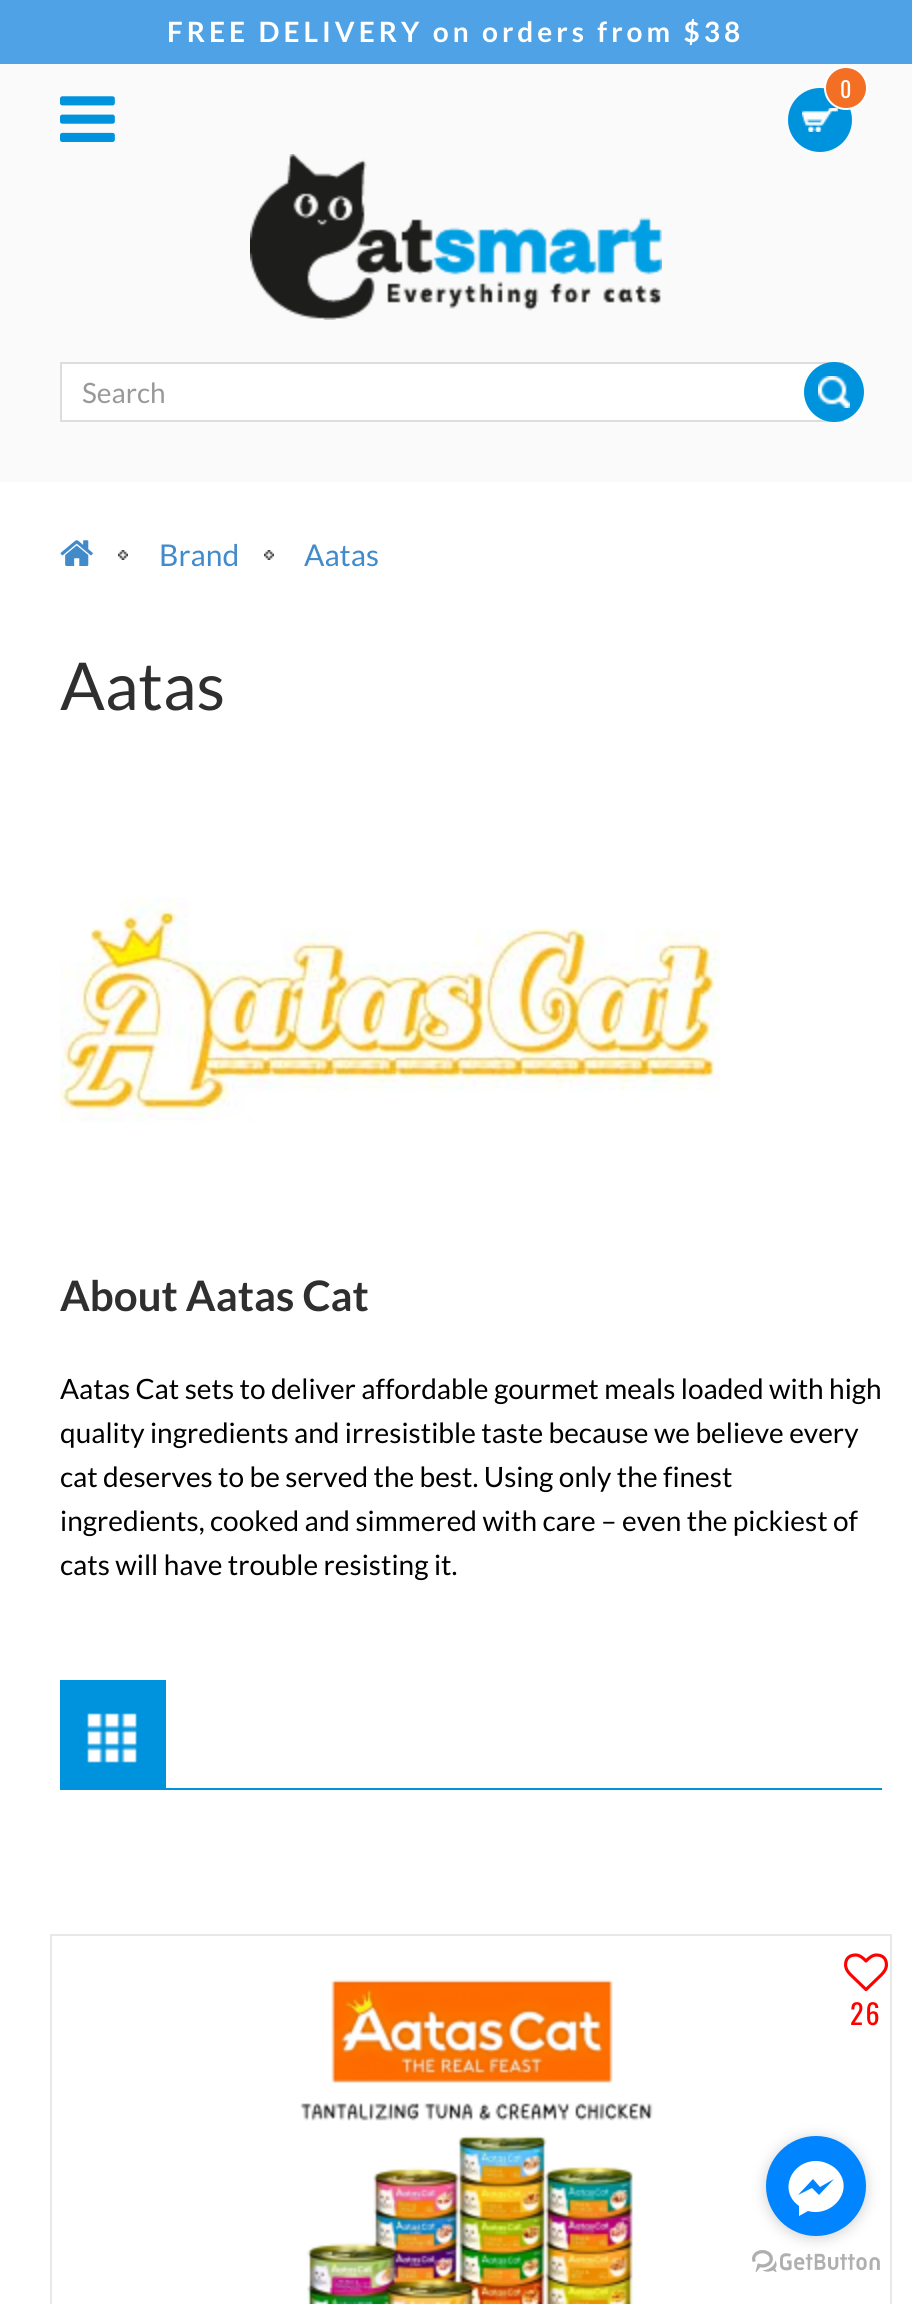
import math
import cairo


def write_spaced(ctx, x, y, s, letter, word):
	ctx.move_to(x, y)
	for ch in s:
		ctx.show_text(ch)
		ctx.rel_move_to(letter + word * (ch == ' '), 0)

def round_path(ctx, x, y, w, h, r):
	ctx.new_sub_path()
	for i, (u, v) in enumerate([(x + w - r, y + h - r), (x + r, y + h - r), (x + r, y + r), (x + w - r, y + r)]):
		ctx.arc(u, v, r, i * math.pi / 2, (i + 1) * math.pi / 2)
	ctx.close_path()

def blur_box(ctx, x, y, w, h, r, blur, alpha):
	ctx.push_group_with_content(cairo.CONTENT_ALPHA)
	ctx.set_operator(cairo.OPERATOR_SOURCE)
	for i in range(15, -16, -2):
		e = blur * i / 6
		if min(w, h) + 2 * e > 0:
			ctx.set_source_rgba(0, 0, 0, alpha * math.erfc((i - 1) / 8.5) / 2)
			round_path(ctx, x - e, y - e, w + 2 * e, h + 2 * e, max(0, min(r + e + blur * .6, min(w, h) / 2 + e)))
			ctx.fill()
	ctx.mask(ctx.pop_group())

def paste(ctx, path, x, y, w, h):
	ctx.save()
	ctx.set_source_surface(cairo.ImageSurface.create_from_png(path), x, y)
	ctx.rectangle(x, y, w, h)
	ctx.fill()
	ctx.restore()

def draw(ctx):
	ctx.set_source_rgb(1, 1, 1)
	ctx.paint()
	ctx.set_source_rgb(0.306, 0.635, 0.898)
	ctx.rectangle(0, 0, 912, 64)
	ctx.fill()
	ctx.select_font_face('Lato', cairo.FONT_SLANT_NORMAL, cairo.FONT_WEIGHT_BOLD)
	ctx.set_font_size(28)
	ctx.set_source_rgb(1, 1, 1)
	write_spaced(ctx, 167, 42, 'FREE DELIVERY on orders from $38', 4, 0)
	ctx.set_source_rgb(0.98, 0.98, 0.98)
	ctx.rectangle(0, 64, 912, 418)
	ctx.fill()
	ctx.set_source_rgb(0, 0.576, 0.867)
	ctx.arc(820, 120, 32, 0, 2 * math.pi)
	ctx.fill()
	paste(ctx, 'media/1.png', 802, 108, 36, 24)
	ctx.set_source_rgb(0.953, 0.435, 0.141)
	ctx.arc(846, 88, 21, 0, 2 * math.pi)
	ctx.fill_preserve()
	ctx.set_source_rgb(1, 1, 1)
	ctx.stroke()
	ctx.select_font_face('Oswald')
	ctx.set_font_size(22)
	ctx.move_to(840, 98)
	ctx.show_text('0')
	paste(ctx, 'media/2.png', 60, 96, 55, 46)
	paste(ctx, 'media/3.png', 250, 154, 412, 166)
	ctx.rectangle(62, 362, 790, 60)
	ctx.fill()
	ctx.rectangle(61, 363, 782, 58)
	ctx.set_source_rgb(0.867, 0.867, 0.867)
	ctx.stroke()
	ctx.select_font_face('Lato')
	ctx.set_font_size(28)
	ctx.set_source_rgb(0.6, 0.6, 0.6)
	ctx.move_to(82, 403)
	ctx.show_text('Search')
	ctx.set_source_rgb(0, 0.576, 0.867)
	ctx.new_path()
	ctx.arc(834, 392, 30, 0, 2 * math.pi)
	ctx.fill()
	paste(ctx, 'media/4.png', 818, 376, 32, 32)
	paste(ctx, 'media/5.png', 60, 540, 33, 26)
	paste(ctx, 'media/6.png', 118, 550, 10, 10)
	ctx.set_font_size(30)
	ctx.set_source_rgb(0.259, 0.545, 0.792)
	ctx.move_to(159, 566)
	ctx.show_text('Brand')
	paste(ctx, 'media/6.png', 264, 550, 10, 10)
	ctx.move_to(304, 566)
	ctx.show_text('Aatas')
	ctx.set_font_size(66)
	ctx.set_source_rgb(0.184, 0.184, 0.184)
	ctx.move_to(60, 710)
	ctx.show_text('Aatas')
	paste(ctx, 'media/7.png', 60, 897, 660, 226)
	ctx.select_font_face('Lato', cairo.FONT_SLANT_NORMAL, cairo.FONT_WEIGHT_BOLD)
	ctx.set_font_size(42)
	ctx.move_to(60, 1311)
	ctx.show_text('About Aatas Cat')
	ctx.select_font_face('Lato')
	ctx.set_font_size(28)
	ctx.set_source_rgb(0, 0, 0)
	for x, y, s in [
		(60, 1399, 'Aatas Cat sets to deliver affordable gourmet meals loaded with high'),
		(60, 1443, 'quality ingredients and irresistible taste because we believe every'),
		(60, 1487, 'cat deserves to be served the best. Using only the finest'),
		(60, 1531, 'ingredients, cooked and simmered with care – even the pickiest of'),
		(60, 1575, 'cats will have trouble resisting it.'),
	]:
		ctx.move_to(x, y)
		ctx.show_text(s)
	ctx.set_source_rgb(0, 0.576, 0.867)
	ctx.rectangle(60, 1788, 822, 2)
	ctx.fill()
	ctx.rectangle(60, 1680, 106, 108)
	ctx.fill()
	paste(ctx, 'media/8.png', 87, 1713, 50, 50)
	ctx.rectangle(51, 1935, 840, 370)
	ctx.set_source_rgb(0.91, 0.91, 0.91)
	ctx.stroke()
	paste(ctx, 'media/9.png', 300, 1979, 353, 325)
	paste(ctx, 'media/10.png', 844, 1953, 44, 39)
	ctx.select_font_face('Oswald')
	ctx.set_source_rgb(1, 0, 0)
	write_spaced(ctx, 850, 2025, '26', 2, 0)
	paste(ctx, 'media/11.png', 752, 2250, 128, 22)
	ctx.set_source_rgb(0.533, 0.533, 0.533)
	blur_box(ctx, 766, 2138, 100, 100, 50, 7, 0.4)
	ctx.set_source_rgb(0, 0.518, 1)
	ctx.arc(816, 2186, 50, 0, 2 * math.pi)
	ctx.fill()
	ctx.set_source_rgb(1, 1, 1)
	ctx.new_path()
	ctx.move_to(816, 2161)
	ctx.curve_to(791, 2161, 778, 2191, 799, 2206)
	ctx.line_to(799, 2216)
	ctx.line_to(808, 2211)
	ctx.curve_to(833, 2218, 857, 2188, 835, 2168)
	ctx.curve_to(830, 2164, 823, 2161, 816, 2161)
	ctx.close_path()
	ctx.move_to(819, 2195)
	ctx.line_to(812, 2188)
	ctx.line_to(798, 2195)
	ctx.line_to(813, 2179)
	ctx.line_to(820, 2187)
	ctx.line_to(834, 2179)
	ctx.close_path()
	ctx.fill()


surface = cairo.ImageSurface(cairo.FORMAT_RGB24, 912, 2304)
ctx = cairo.Context(surface)
options = cairo.FontOptions()
options.set_hint_metrics(cairo.HINT_METRICS_OFF)
options.set_hint_style(cairo.HINT_STYLE_NONE)
ctx.set_font_options(options)
ctx.set_miter_limit(4)
draw(ctx)
surface.write_to_png('image.png')
